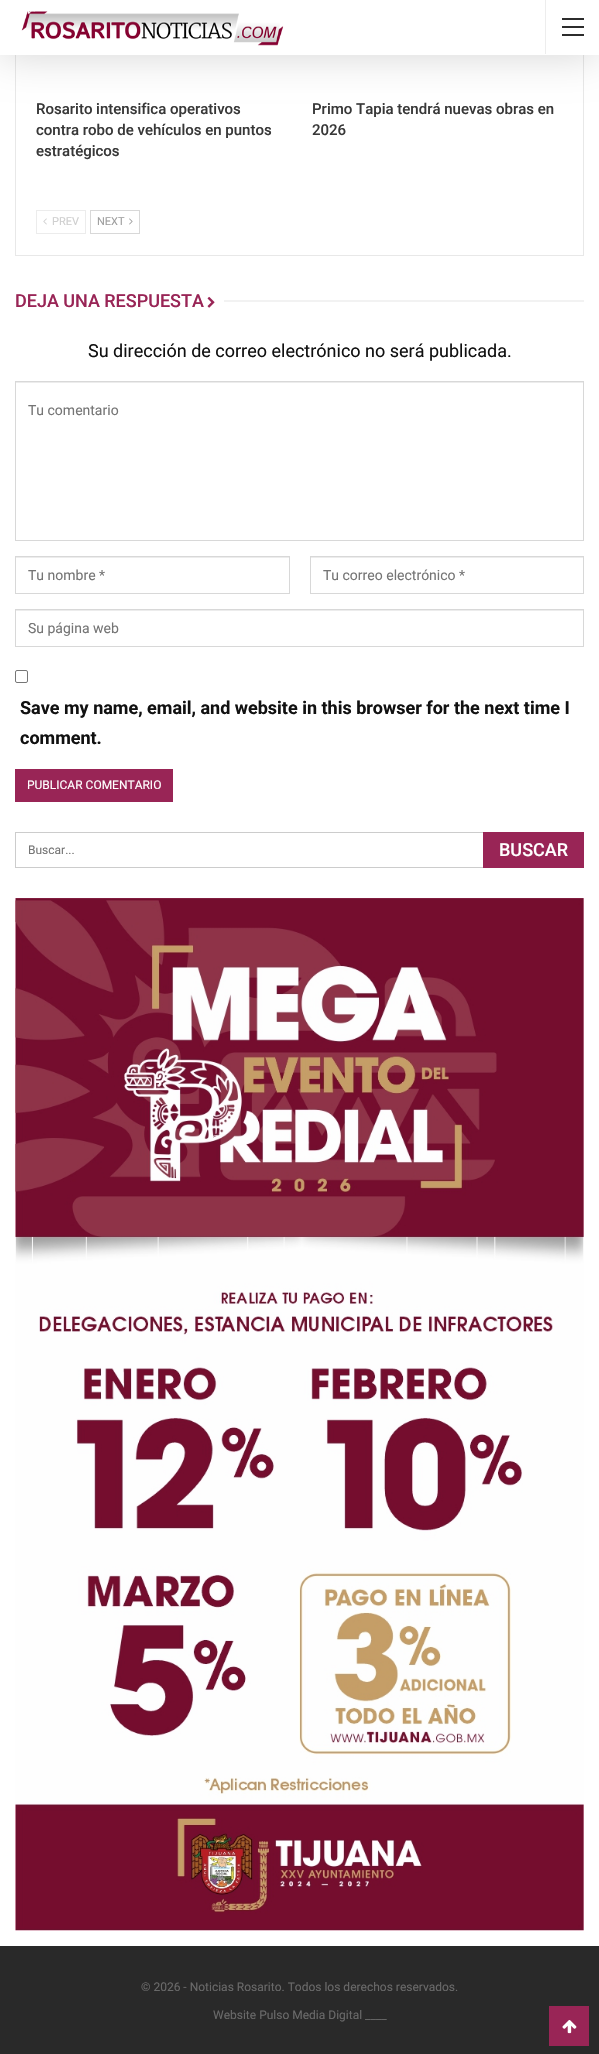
static SkFont makeFont(const char* family, int weight, float size, bool italic = false) {
  SkFontStyle style(weight, SkFontStyle::kNormal_Width,
    italic ? SkFontStyle::kItalic_Slant : SkFontStyle::kUpright_Slant);
  SkFont result(fontMgr->matchFamilyStyle(family, style), size);
  result.setSubpixel(true);
  return result;
}

static void text(SkCanvas* c, const char* s, float x, float y, const SkFont& font, SkColor color) {
  SkPaint ink(SkColor4f::FromColor(color));
  ink.setAntiAlias(true);
  c->drawString(s, x, y, font, ink);
}

static void box(SkCanvas* c, float l, float t, float r, float b, SkColor color) {
  SkPaint ink(SkColor4f::FromColor(color));
  ink.setAntiAlias(true);
  c->drawRect(SkRect::MakeLTRB(l, t, r, b), ink);
}

static void picture(SkCanvas* c, const char* path, float l, float t, float r, float b) {
  auto image = SkImages::DeferredFromEncodedData(SkData::MakeFromFileName(path));
  c->drawImageRect(image, SkRect::MakeLTRB(l, t, r, b), SkSamplingOptions());
}

void draw(SkCanvas* c) {
  SkPaint paint;
  paint.setAntiAlias(true);
  c->clear(0xffffffff);
  paint.setStyle(SkPaint::kStroke_Style);
  paint.setStrokeWidth(1);
  paint.setColor(0xffe8e8e8);
  c->drawRect(SkRect::MakeLTRB(15.5f, -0.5f, 583.5f, 255.5f), paint);
  paint.setStyle(SkPaint::kFill_Style);
  paint.setColor(0x2b000000);
  paint.setMaskFilter(SkMaskFilter::MakeBlur(kNormal_SkBlurStyle, 20));
  c->drawRect(SkRect::MakeLTRB(0, 0, 599, 55), paint);
  paint.setMaskFilter(nullptr);
  box(c, 0, 0, 599, 55, 0xffffffff);
  picture(c, "img_01.png", 21, 11, 284, 46);
  box(c, 545, 0, 546, 54, 0xffededed);
  box(c, 562, 26, 584, 28, 0xff2c2c2c);
  box(c, 562, 18, 584, 20, 0xff2c2c2c);
  box(c, 562, 34, 584, 36, 0xff2c2c2c);
  SkFont face1 = makeFont("Roboto", 500, 15);
  text(c, "Rosarito intensifica operativos", 36, 114, face1, 0xff383838);
  text(c, "contra robo de vehículos en puntos", 36, 135, face1, 0xff383838);
  text(c, "estratégicos", 36, 156, face1, 0xff383838);
  text(c, "Primo Tapia tendrá nuevas obras en", 312, 114, face1, 0xff383838);
  text(c, "2026", 312, 135, face1, 0xff383838);
  paint.setStyle(SkPaint::kStroke_Style);
  paint.setColor(0xffececec);
  c->drawRect(SkRect::MakeLTRB(36.5f, 210.5f, 85.5f, 233.5f), paint);
  picture(c, "img_02.png", 43, 218, 47, 225);
  SkFont face2 = makeFont("Roboto", 400, 11);
  text(c, "PREV", 52, 225, face2, 0xffcfcfcf);
  paint.setColor(0xffd8d8d8);
  c->drawRect(SkRect::MakeLTRB(90.5f, 210.5f, 139.5f, 233.5f), paint);
  text(c, "NEXT", 97, 225, face2, 0xff9e9e9e);
  picture(c, "img_03.png", 129, 218, 133, 225);
  SkFont face3 = makeFont("Roboto", 500, 18);
  text(c, "DEJA UNA RESPUESTA", 15, 307, face3, 0xff992556);
  picture(c, "img_04.png", 207, 296, 215, 308);
  box(c, 224, 300, 584, 302, 0xfff2f2f2);
  SkFont face4 = makeFont("Roboto", 400, 18);
  text(c, "Su dirección de correo electrónico no será publicada.", 88, 357, face4, 0xff111111);
  box(c, 16, 382, 583, 383, 0xffececec);
  c->drawRect(SkRect::MakeLTRB(15.5f, 381.5f, 583.5f, 540.5f), paint);
  SkFont face5 = makeFont("Roboto", 400, 14);
  text(c, "Tu comentario", 28, 415, face5, 0xff757575);
  box(c, 16, 557, 289, 558, 0xffececec);
  c->drawRect(SkRect::MakeLTRB(15.5f, 556.5f, 289.5f, 593.5f), paint);
  text(c, "Tu nombre *", 28, 580, face5, 0xff757575);
  box(c, 311, 557, 583, 558, 0xffececec);
  c->drawRect(SkRect::MakeLTRB(310.5f, 556.5f, 583.5f, 593.5f), paint);
  text(c, "Tu correo electrónico *", 323, 580, face5, 0xff757575);
  box(c, 16, 610, 583, 611, 0xffececec);
  c->drawRect(SkRect::MakeLTRB(15.5f, 609.5f, 583.5f, 646.5f), paint);
  text(c, "Su página web", 28, 633, face5, 0xff757575);
  paint.setColor(0xff767676);
  c->drawRoundRect(SkRect::MakeLTRB(15.5f, 670.5f, 27.5f, 682.5f), 1.5f, 1.5f, paint);
  SkFont face6 = makeFont("Roboto", 700, 18);
  text(c, "Save my name, email, and website in this browser for the next time I", 20, 714, face6, 0xff111111);
  text(c, "comment.", 20, 744, face6, 0xff111111);
  box(c, 15, 769, 173, 802, 0xff992556);
  SkFont face7 = makeFont("Roboto", 400, 12);
  text(c, "PUBLICAR COMENTARIO", 27, 789, face7, 0xffffffff);
  paint.setColor(0xffcccccc);
  c->drawRect(SkRect::MakeLTRB(15.5f, 832.5f, 583.5f, 867.5f), paint);
  text(c, "Buscar...", 28, 854, face7, 0xff757575);
  box(c, 483, 832, 584, 868, 0xff992556);
  text(c, "BUSCAR", 499, 856, face3, 0xffffffff);
  picture(c, "img_05.png", 15, 898, 584, 1931);
  box(c, 0, 1946, 599, 2054, 0xff292929);
  text(c, "© 2026 - Noticias Rosarito. Todos los derechos reservados.", 141, 1991, face7, 0xff696969);
  text(c, "Website Pulso Media Digital ____", 213, 2019, face7, 0xff696969);
  box(c, 549, 2006, 589, 2046, 0xff992556);
  picture(c, "img_06.png", 562, 2020, 577, 2034);
}
